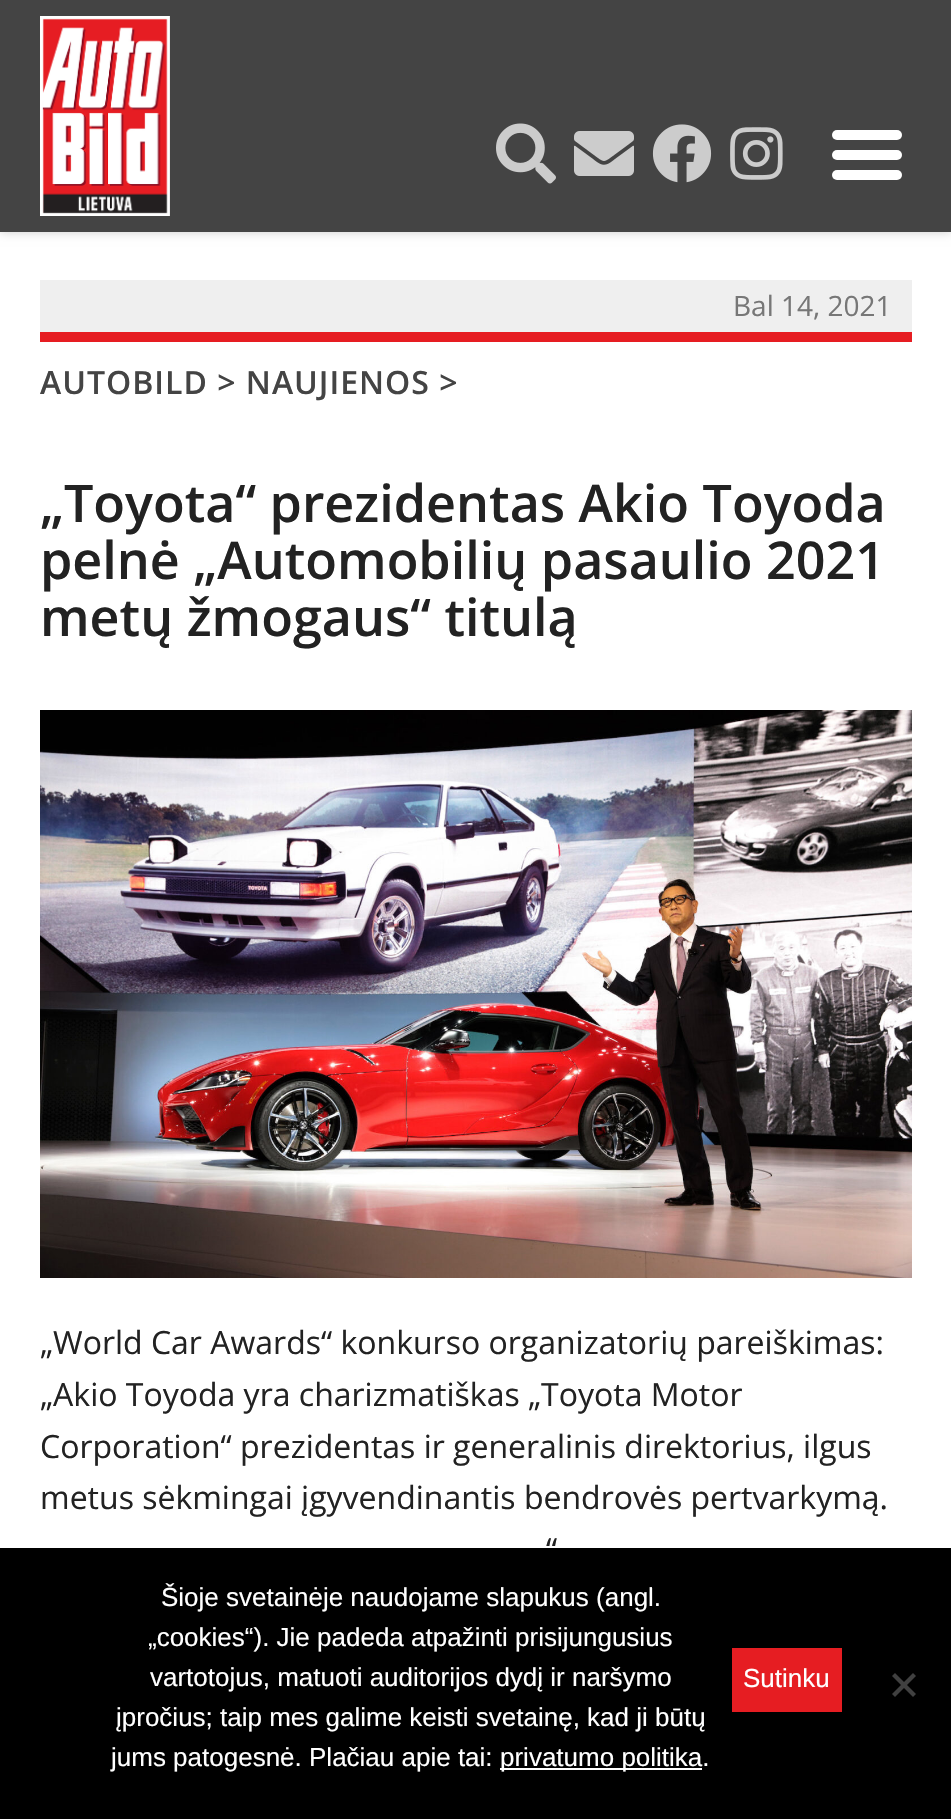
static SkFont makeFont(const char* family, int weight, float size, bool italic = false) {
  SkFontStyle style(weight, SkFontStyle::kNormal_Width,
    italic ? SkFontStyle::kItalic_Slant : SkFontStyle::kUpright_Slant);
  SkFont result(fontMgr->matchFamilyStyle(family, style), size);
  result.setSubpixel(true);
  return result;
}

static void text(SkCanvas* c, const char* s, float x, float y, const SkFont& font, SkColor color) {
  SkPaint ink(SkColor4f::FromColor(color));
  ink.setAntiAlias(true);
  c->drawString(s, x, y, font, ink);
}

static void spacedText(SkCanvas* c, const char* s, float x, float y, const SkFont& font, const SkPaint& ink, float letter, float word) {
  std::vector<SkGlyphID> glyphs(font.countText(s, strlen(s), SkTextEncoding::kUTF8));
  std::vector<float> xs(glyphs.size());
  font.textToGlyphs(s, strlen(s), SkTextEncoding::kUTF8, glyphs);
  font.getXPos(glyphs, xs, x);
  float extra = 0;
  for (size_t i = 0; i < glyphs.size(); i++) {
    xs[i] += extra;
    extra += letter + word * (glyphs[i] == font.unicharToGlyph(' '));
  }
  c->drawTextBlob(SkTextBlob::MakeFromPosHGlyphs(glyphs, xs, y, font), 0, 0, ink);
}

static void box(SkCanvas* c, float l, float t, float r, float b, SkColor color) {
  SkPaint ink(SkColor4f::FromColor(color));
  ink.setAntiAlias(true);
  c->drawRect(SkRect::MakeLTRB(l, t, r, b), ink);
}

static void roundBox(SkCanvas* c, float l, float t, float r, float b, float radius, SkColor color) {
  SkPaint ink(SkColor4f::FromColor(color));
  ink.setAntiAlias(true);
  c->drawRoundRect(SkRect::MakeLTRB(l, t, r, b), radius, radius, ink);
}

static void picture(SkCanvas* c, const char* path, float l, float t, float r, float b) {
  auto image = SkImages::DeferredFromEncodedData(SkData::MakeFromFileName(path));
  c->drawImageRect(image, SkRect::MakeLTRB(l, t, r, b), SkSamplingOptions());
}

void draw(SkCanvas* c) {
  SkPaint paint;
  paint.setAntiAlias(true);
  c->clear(0xffffffff);
  paint.setColor(0x33000000);
  paint.setMaskFilter(SkMaskFilter::MakeBlur(kNormal_SkBlurStyle, 5));
  c->drawRect(SkRect::MakeLTRB(0, 0, 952, 232), paint);
  paint.setMaskFilter(nullptr);
  box(c, 0, 0, 951, 232, 0xff444444);
  picture(c, "img_01.png", 40, 16, 170, 216);
  picture(c, "img_02.png", 496, 123, 556, 184);
  picture(c, "img_03.png", 574, 131, 634, 176);
  picture(c, "img_04.png", 652, 124, 712, 183);
  picture(c, "img_05.png", 730, 127, 783, 180);
  roundBox(c, 832, 130, 902, 140, 5, 0xffffffff);
  roundBox(c, 832, 150, 902, 160, 5, 0xffffffff);
  roundBox(c, 832, 170, 902, 180, 5, 0xffffffff);
  box(c, 40, 280, 912, 332, 0xffefefef);
  SkFont face1 = makeFont("Open Sans", 400, 28);
  text(c, "Bal 14, 2021", 733, 316, face1, 0xff777777);
  box(c, 40, 332, 912, 342, 0xffe61d22);
  SkFont face2 = makeFont("Open Sans", 600, 32);
  paint.setColor(0xff444444);
  spacedText(c, "AUTOBILD > NAUJIENOS >", 40, 394, face2, paint, 1, 0);
  SkFont face3 = makeFont("Open Sans", 600, 52);
  text(c, "„Toyota“ prezidentas Akio Toyoda", 40, 522, face3, 0xff222222);
  text(c, "pelnė „Automobilių pasaulio 2021", 40, 579, face3, 0xff222222);
  text(c, "metų žmogaus“ titulą", 40, 636, face3, 0xff222222);
  picture(c, "img_06.png", 40, 710, 912, 1278);
  SkFont face4 = makeFont("Open Sans", 400, 32);
  text(c, "„World Car Awards“ konkurso organizatorių pareiškimas:", 40, 1354, face4, 0xff222222);
  text(c, "„Akio Toyoda yra charizmatiškas „Toyota Motor", 40, 1406, face4, 0xff222222);
  text(c, "Corporation“ prezidentas ir generalinis direktorius, ilgus", 40, 1458, face4, 0xff222222);
  text(c, "metus sėkmingai įgyvendinantis bendrovės pertvarkymą.", 40, 1509, face4, 0xff222222);
  text(c, "“", 546, 1561, face4, 0xff222222);
  box(c, 0, 1548, 951, 1819, 0xff000000);
  SkFont face5 = makeFont("Liberation Sans", 400, 26);
  text(c, "Šioje svetainėje naudojame slapukus (angl.", 161, 1606, face5, 0xffffffff);
  text(c, "„cookies“). Jie padeda atpažinti prisijungusius", 148, 1646, face5, 0xffffffff);
  text(c, "vartotojus, matuoti auditorijos dydį ir naršymo", 150, 1686, face5, 0xffffffff);
  text(c, "įpročius; taip mes galime keisti svetainę, kad ji būtų", 116, 1726, face5, 0xffffffff);
  text(c, "jums patogesnė. Plačiau apie tai:", 111, 1766, face5, 0xffffffff);
  box(c, 500, 1768, 702, 1770, 0xffffffff);
  text(c, "privatumo politika.", 500, 1766, face5, 0xffffffff);
  box(c, 732, 1648, 842, 1712, 0xffe61d22);
  text(c, "Sutinku", 743, 1687, face5, 0xffffffff);
  paint.setColor(0xff404040);
  c->drawPath(SkPathBuilder().moveTo(913, 1673).lineTo(916, 1676).lineTo(895, 1697).lineTo(892, 1694).close().detach(), paint);
  c->drawPath(SkPathBuilder().moveTo(892, 1676).lineTo(895, 1673).lineTo(916, 1694).lineTo(913, 1697).close().detach(), paint);
}
